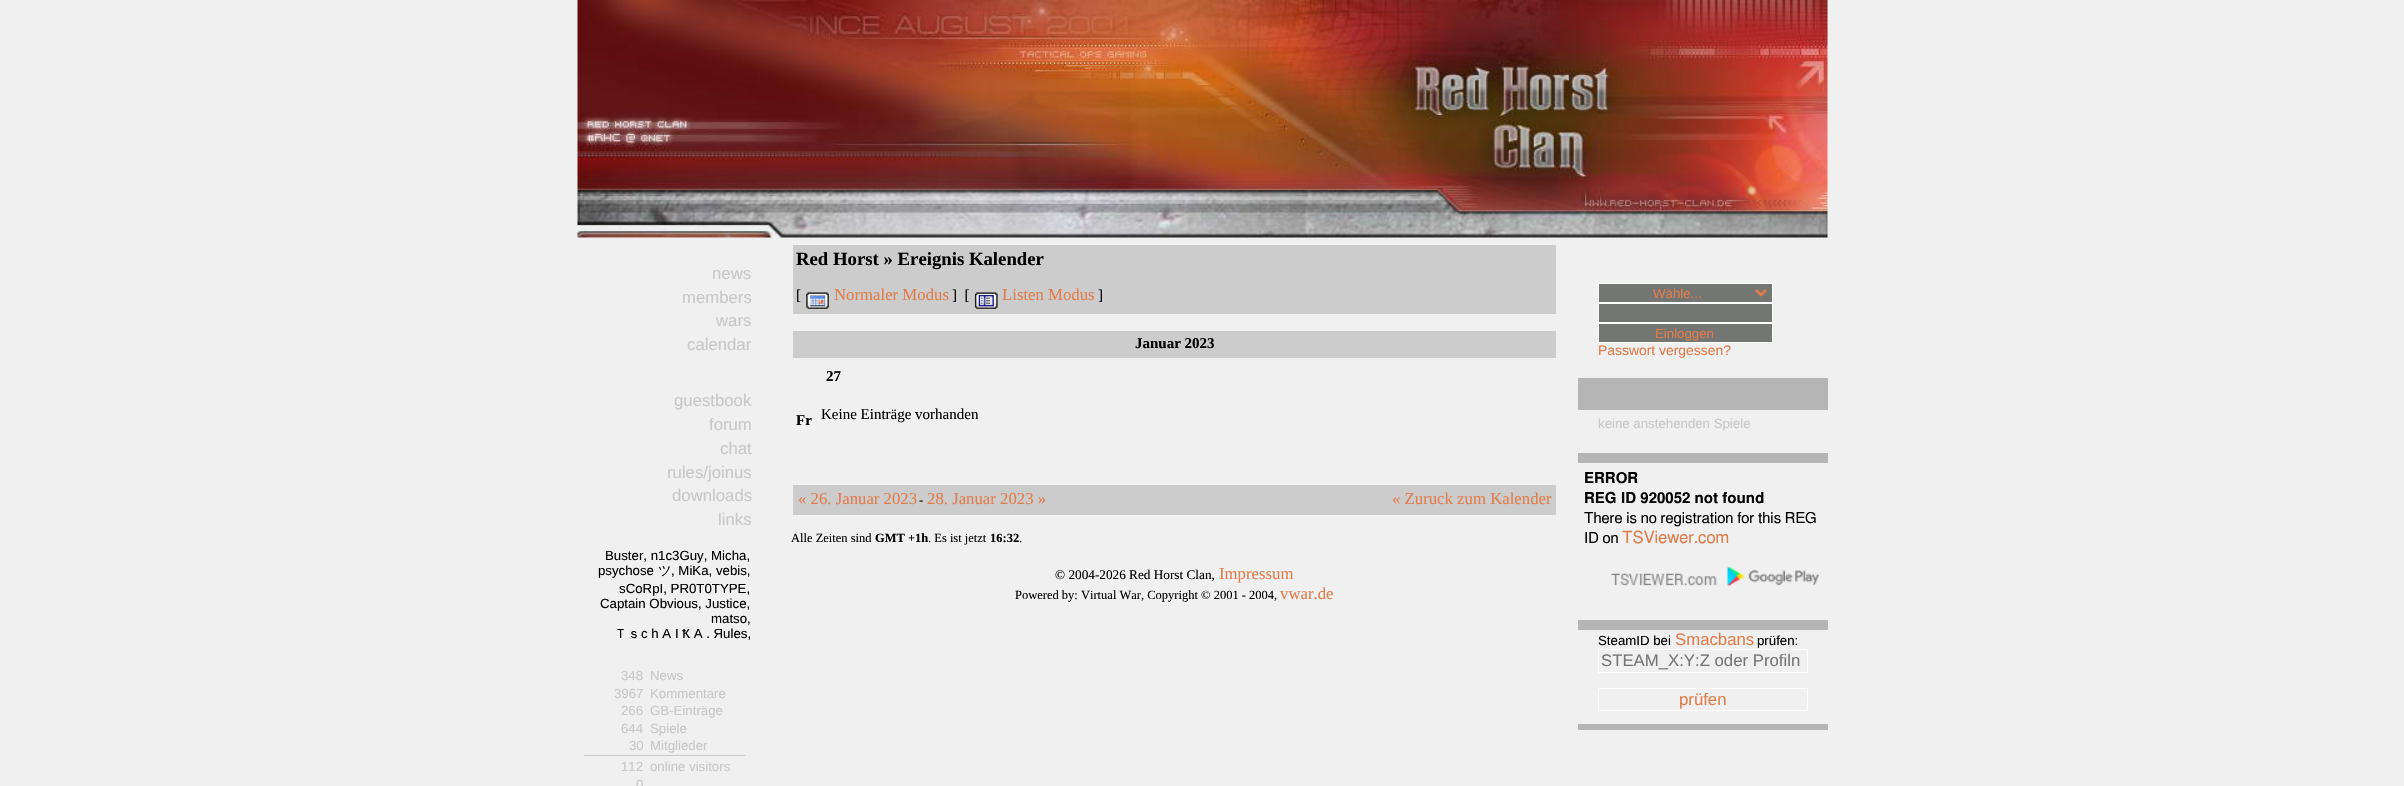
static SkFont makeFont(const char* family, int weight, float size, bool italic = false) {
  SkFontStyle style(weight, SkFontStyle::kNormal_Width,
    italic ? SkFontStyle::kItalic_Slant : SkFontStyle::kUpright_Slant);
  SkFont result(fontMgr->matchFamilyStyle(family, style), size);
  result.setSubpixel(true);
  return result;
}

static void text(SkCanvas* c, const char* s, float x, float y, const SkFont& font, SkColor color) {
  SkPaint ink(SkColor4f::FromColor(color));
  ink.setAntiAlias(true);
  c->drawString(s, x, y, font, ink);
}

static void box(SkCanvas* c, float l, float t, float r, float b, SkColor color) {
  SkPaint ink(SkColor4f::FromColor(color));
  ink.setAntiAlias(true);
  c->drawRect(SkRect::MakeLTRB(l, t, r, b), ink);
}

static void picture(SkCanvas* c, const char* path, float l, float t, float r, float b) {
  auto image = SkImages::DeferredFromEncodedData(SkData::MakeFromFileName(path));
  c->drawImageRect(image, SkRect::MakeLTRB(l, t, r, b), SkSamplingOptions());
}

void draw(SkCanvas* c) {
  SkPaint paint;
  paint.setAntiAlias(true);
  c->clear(0xfff0f0f0);
  picture(c, "img_01.png", 577, 0, 1828, 238);
  SkFont face1 = makeFont("Liberation Sans", 400, 16.75f);
  text(c, "news", 712, 279, face1, 0xffc8c8c8);
  text(c, "members", 682, 303, face1, 0xffc8c8c8);
  text(c, "wars", 716, 326, face1, 0xffc8c8c8);
  text(c, "calendar", 687, 350, face1, 0xffc8c8c8);
  text(c, "guestbook", 674, 406, face1, 0xffc8c8c8);
  text(c, "forum", 709, 430, face1, 0xffc8c8c8);
  text(c, "chat", 720, 454, face1, 0xffc8c8c8);
  text(c, "rules/joinus", 667, 478, face1, 0xffc8c8c8);
  text(c, "downloads", 672, 501, face1, 0xffc8c8c8);
  text(c, "links", 718, 525, face1, 0xffc8c8c8);
  SkFont face2 = makeFont("Liberation Sans", 400, 13.25f);
  text(c, "Buster, n1c3Guy, Micha,", 605, 560, face2, 0xff000000);
  text(c, "psychose", 598, 575, face2, 0xff000000);
  SkFont face3 = makeFont("WenQuanYi Zen Hei", 500, 13.25f);
  text(c, "ツ", 658, 575, face3, 0xff000000);
  text(c, ", MiKa, vebis,", 671, 575, face2, 0xff000000);
  text(c, "sCoRpI, PR0T0TYPE,", 619, 593, face2, 0xff000000);
  text(c, "Captain Obvious, Justice,", 600, 608, face2, 0xff000000);
  text(c, "matso,", 711, 623, face2, 0xff000000);
  text(c, "Ｔｓ", 614, 638, face3, 0xff000000);
  text(c, "c h A I Ҟ A . Яules,", 641, 638, face2, 0xff000000);
  text(c, "348", 621, 680, face2, 0xffc8c8c8);
  text(c, "News", 650, 680, face2, 0xffc8c8c8);
  text(c, "3967", 614, 698, face2, 0xffc8c8c8);
  text(c, "Kommentare", 650, 698, face2, 0xffc8c8c8);
  text(c, "266", 621, 715, face2, 0xffc8c8c8);
  text(c, "GB-Einträge", 650, 715, face2, 0xffc8c8c8);
  text(c, "644", 621, 733, face2, 0xffc8c8c8);
  text(c, "Spiele", 650, 733, face2, 0xffc8c8c8);
  text(c, "30", 629, 750, face2, 0xffc8c8c8);
  text(c, "Mitglieder", 650, 750, face2, 0xffc8c8c8);
  box(c, 584, 755, 745, 756, 0xffc8c8c8);
  text(c, "112", 621, 771, face2, 0xffc8c8c8);
  text(c, "online visitors", 650, 771, face2, 0xffc8c8c8);
  text(c, "0", 636, 789, face2, 0xffc8c8c8);
  box(c, 793, 245, 1556, 314, 0xffcccccc);
  SkFont face4 = makeFont("Liberation Serif", 700, 18.75f);
  text(c, "Red Horst » Ereignis Kalender", 796, 265, face4, 0xff000000);
  SkFont face5 = makeFont("Liberation Serif", 400, 15);
  text(c, "[", 796, 300, face5, 0xff000000);
  picture(c, "img_02.png", 806, 292, 829, 309);
  SkFont face6 = makeFont("Liberation Serif", 400, 16.75f);
  text(c, "Normaler Modus", 834, 300, face6, 0xffe17c4b);
  text(c, "]  [", 952, 300, face5, 0xff000000);
  picture(c, "img_03.png", 974, 292, 998, 309);
  text(c, "Listen Modus", 1002, 300, face6, 0xffe17c4b);
  text(c, "]", 1098, 300, face5, 0xff000000);
  box(c, 793, 331, 1556, 358, 0xffcccccc);
  SkFont face7 = makeFont("Liberation Serif", 700, 15);
  text(c, "Januar 2023", 1135, 348, face7, 0xff000000);
  text(c, "Fr", 796, 425, face7, 0xff000000);
  text(c, "27", 826, 381, face7, 0xff000000);
  text(c, "Keine Einträge vorhanden", 821, 419, face5, 0xff000000);
  box(c, 793, 485, 1556, 515, 0xffcccccc);
  text(c, "« 26. Januar 2023", 798, 504, face6, 0xffe17c4b);
  SkFont face8 = makeFont("Liberation Serif", 400, 12.5f);
  text(c, "-", 919, 504, face8, 0xff000000);
  text(c, "28. Januar 2023 »", 927, 504, face6, 0xffe17c4b);
  text(c, "« Zuruck zum Kalender", 1392, 504, face6, 0xffe17c4b);
  text(c, "Alle Zeiten sind", 791, 542, face8, 0xff000000);
  SkFont face9 = makeFont("Liberation Serif", 700, 12.5f);
  text(c, "GMT +1h", 875, 542, face9, 0xff000000);
  text(c, ". Es ist jetzt", 928, 542, face8, 0xff000000);
  text(c, "16:32", 990, 542, face9, 0xff000000);
  text(c, ".", 1019, 542, face8, 0xff000000);
  SkFont face10 = makeFont("Liberation Serif", 400, 13.25f);
  text(c, "© 2004-2026 Red Horst Clan,", 1055, 579, face10, 0xff000000);
  text(c, "Impressum", 1219, 579, face6, 0xffe17c4b);
  text(c, "Powered by: Virtual War, Copyright © 2001 - 2004,", 1015, 599, face8, 0xff000000);
  text(c, "vwar.de", 1280, 599, face6, 0xffe17c4b);
  paint.setColor(0xff747674);
  c->drawRect(SkRect::MakeLTRB(1598.5f, 283.5f, 1772.5f, 302.5f), paint);
  paint.setStyle(SkPaint::kStroke_Style);
  paint.setStrokeWidth(1);
  paint.setColor(0xffffffff);
  c->drawRect(SkRect::MakeLTRB(1598.5f, 283.5f, 1772.5f, 302.5f), paint);
  paint.setStrokeWidth(2.5f);
  paint.setColor(0xffe17c4b);
  c->drawPath(SkPathBuilder().moveTo(1756, 290).lineTo(1761, 295).lineTo(1766, 290).detach(), paint);
  text(c, "Wähle...", 1653, 298, face2, 0xffe17c4b);
  paint.setStyle(SkPaint::kFill_Style);
  paint.setColor(0xff747674);
  c->drawRect(SkRect::MakeLTRB(1598.5f, 303.5f, 1772.5f, 322.5f), paint);
  paint.setStyle(SkPaint::kStroke_Style);
  paint.setStrokeWidth(1);
  paint.setColor(0xffffffff);
  c->drawRect(SkRect::MakeLTRB(1598.5f, 303.5f, 1772.5f, 322.5f), paint);
  paint.setStyle(SkPaint::kFill_Style);
  paint.setColor(0xff747674);
  c->drawRect(SkRect::MakeLTRB(1598.5f, 323.5f, 1772.5f, 342.5f), paint);
  paint.setStyle(SkPaint::kStroke_Style);
  paint.setColor(0xffffffff);
  c->drawRect(SkRect::MakeLTRB(1598.5f, 323.5f, 1772.5f, 342.5f), paint);
  text(c, "Einloggen", 1655, 338, face2, 0xffe17c4b);
  SkFont face11 = makeFont("Liberation Sans", 400, 13.9f);
  text(c, "Passwort vergessen?", 1598, 355, face11, 0xffe17c4b);
  box(c, 1578, 378, 1828, 410, 0xffb5b5b5);
  text(c, "keine anstehenden Spiele", 1598, 428, face2, 0xffc8c8c8);
  box(c, 1578, 453, 1828, 463, 0xffb5b5b5);
  SkFont face12 = makeFont("FreeSans", 600, 15);
  text(c, "ERROR", 1584, 483, face12, 0xff000000);
  text(c, "REG ID 920052 not found", 1584, 503, face12, 0xff000000);
  SkFont face13 = makeFont("FreeSans", 400, 15);
  text(c, "There is no registration for this REG", 1584, 523, face13, 0xff000000);
  text(c, "ID on", 1584, 543, face13, 0xff000000);
  SkFont face14 = makeFont("FreeSans", 400, 16.75f);
  text(c, "TSViewer.com", 1622, 543, face14, 0xffe17c4b);
  picture(c, "img_04.png", 1611, 573, 1717, 586);
  picture(c, "img_05.png", 1727, 566, 1819, 587);
  box(c, 1578, 620, 1828, 630, 0xffb5b5b5);
  text(c, "SteamID bei", 1598, 645, face2, 0xff000000);
  text(c, "Smacbans", 1675, 645, face1, 0xffe17c4b);
  text(c, "prüfen:", 1757, 645, face2, 0xff000000);
  c->drawRect(SkRect::MakeLTRB(1598.5f, 649.5f, 1807.5f, 672.5f), paint);
  text(c, "STEAM_X:Y:Z oder Profiln", 1601, 666, face1, 0xff757575);
  c->drawRect(SkRect::MakeLTRB(1598.5f, 688.5f, 1807.5f, 710.5f), paint);
  text(c, "prüfen", 1679, 705, face1, 0xffe17c4b);
  box(c, 1578, 724, 1828, 730, 0xffb5b5b5);
}
